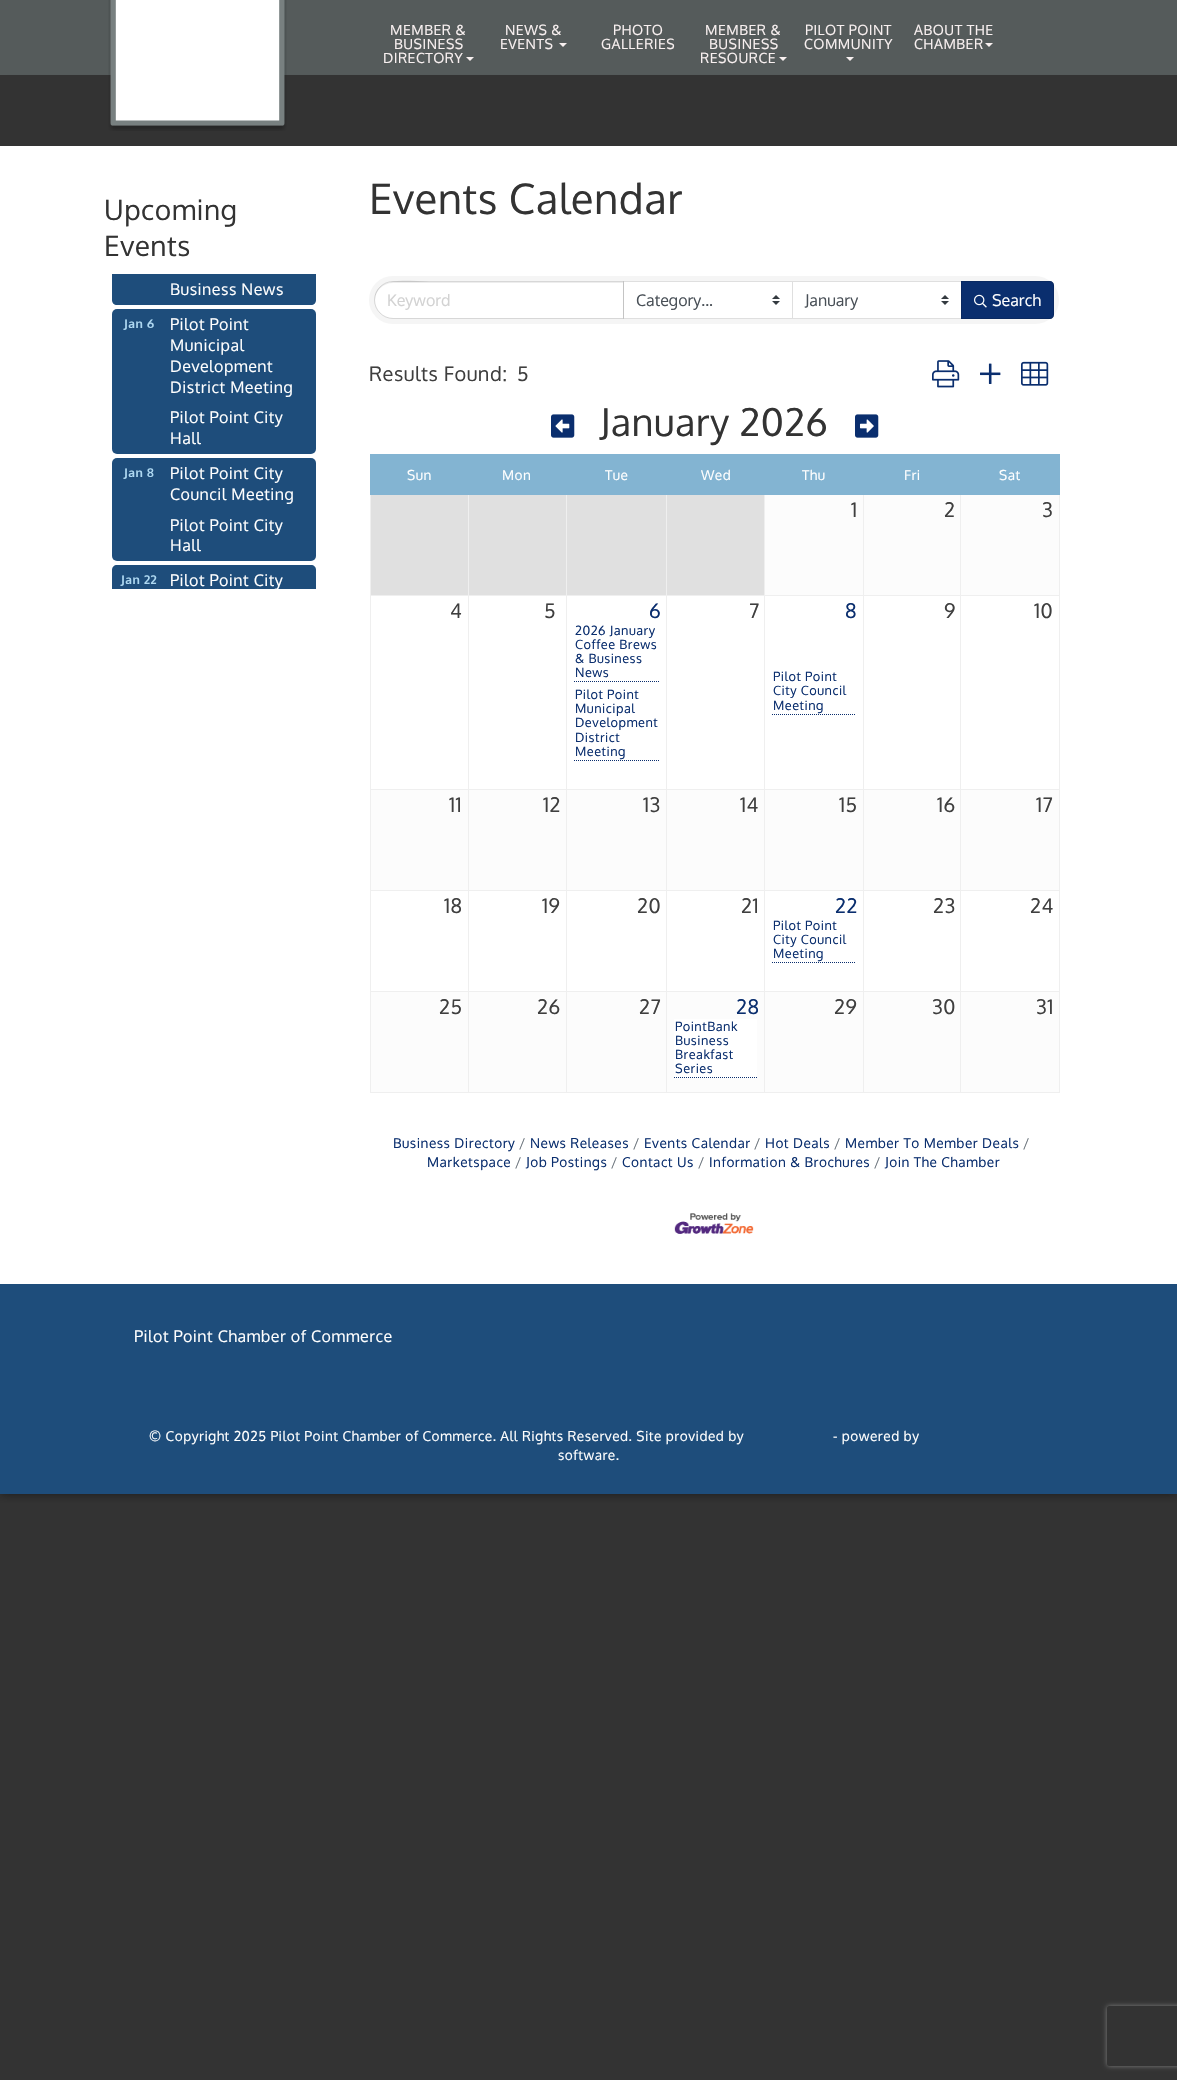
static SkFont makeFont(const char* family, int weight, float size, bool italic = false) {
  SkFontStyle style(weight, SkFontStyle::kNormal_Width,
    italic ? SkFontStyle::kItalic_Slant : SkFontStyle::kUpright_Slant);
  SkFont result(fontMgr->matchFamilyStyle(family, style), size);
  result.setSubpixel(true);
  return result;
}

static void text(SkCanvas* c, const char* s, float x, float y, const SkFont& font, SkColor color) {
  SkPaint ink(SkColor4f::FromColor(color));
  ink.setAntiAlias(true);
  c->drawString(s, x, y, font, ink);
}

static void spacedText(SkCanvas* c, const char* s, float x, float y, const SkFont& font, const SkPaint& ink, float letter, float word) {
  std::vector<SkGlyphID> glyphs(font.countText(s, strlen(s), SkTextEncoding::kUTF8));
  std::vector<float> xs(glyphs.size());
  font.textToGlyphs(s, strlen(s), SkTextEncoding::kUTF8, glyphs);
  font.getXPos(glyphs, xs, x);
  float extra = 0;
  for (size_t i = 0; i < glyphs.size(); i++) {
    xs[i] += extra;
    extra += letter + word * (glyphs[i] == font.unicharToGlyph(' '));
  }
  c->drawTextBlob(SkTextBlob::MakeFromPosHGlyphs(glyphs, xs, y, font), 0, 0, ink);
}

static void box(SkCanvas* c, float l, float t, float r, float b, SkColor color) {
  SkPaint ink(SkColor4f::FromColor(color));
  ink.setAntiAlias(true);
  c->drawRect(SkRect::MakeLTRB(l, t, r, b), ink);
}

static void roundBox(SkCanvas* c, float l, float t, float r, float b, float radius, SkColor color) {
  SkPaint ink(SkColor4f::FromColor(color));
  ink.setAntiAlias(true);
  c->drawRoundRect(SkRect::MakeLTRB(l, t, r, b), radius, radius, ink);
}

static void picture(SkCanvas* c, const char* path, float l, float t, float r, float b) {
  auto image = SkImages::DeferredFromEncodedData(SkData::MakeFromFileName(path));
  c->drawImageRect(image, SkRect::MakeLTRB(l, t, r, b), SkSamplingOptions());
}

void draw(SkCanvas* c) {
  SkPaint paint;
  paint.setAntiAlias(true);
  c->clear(0xff333333);
  c->save();
  c->clipRect(SkRect::MakeLTRB(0, 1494, 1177, 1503));
  paint.setColor(0x80000000);
  paint.setMaskFilter(SkMaskFilter::MakeBlur(kNormal_SkBlurStyle, 5));
  c->drawRect(SkRect::MakeLTRB(0, 0, 1177, 1494), paint);
  paint.setMaskFilter(nullptr);
  c->restore();
  c->save();
  c->clipRect(SkRect::MakeLTRB(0, 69, 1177, 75));
  paint.setColor(0x4d000000);
  paint.setMaskFilter(SkMaskFilter::MakeBlur(kNormal_SkBlurStyle, 3));
  c->drawRect(SkRect::MakeLTRB(0, 73, 1177, 144), paint);
  paint.setMaskFilter(nullptr);
  c->restore();
  box(c, 0, 0, 1177, 75, 0xe6595f5f);
  picture(c, "img_01.png", 108, 0, 287, 131);
  SkFont face1 = makeFont("Oxygen", 400, 14);
  paint.setColor(0xfff8f0f0);
  spacedText(c, "MEMBER &", 390, 35, face1, paint, 0.5f, 0);
  spacedText(c, "BUSINESS", 394, 49, face1, paint, 0.5f, 0);
  spacedText(c, "DIRECTORY", 383, 63, face1, paint, 0.5f, 0);
  c->drawPath(SkPathBuilder().moveTo(466, 57).lineTo(474, 57).lineTo(470, 61).close().detach(), paint);
  spacedText(c, "NEWS &", 505, 35, face1, paint, 0.5f, 0);
  spacedText(c, "EVENTS", 500, 49, face1, paint, 0.5f, 0);
  c->drawPath(SkPathBuilder().moveTo(559, 43).lineTo(567, 43).lineTo(563, 47).close().detach(), paint);
  spacedText(c, "PHOTO", 613, 35, face1, paint, 0.5f, 0);
  spacedText(c, "GALLERIES", 601, 49, face1, paint, 0.5f, 0);
  spacedText(c, "MEMBER &", 705, 35, face1, paint, 0.5f, 0);
  spacedText(c, "BUSINESS", 709, 49, face1, paint, 0.5f, 0);
  spacedText(c, "RESOURCE", 700, 63, face1, paint, 0.5f, 0);
  c->drawPath(SkPathBuilder().moveTo(779, 57).lineTo(787, 57).lineTo(783, 61).close().detach(), paint);
  spacedText(c, "PILOT POINT", 805, 35, face1, paint, 0.5f, 0);
  spacedText(c, "COMMUNITY", 804, 49, face1, paint, 0.5f, 0);
  c->drawPath(SkPathBuilder().moveTo(846, 57).lineTo(854, 57).lineTo(850, 61).close().detach(), paint);
  spacedText(c, "ABOUT THE", 914, 35, face1, paint, 0.5f, 0);
  spacedText(c, "CHAMBER", 914, 49, face1, paint, 0.5f, 0);
  c->drawPath(SkPathBuilder().moveTo(985, 43).lineTo(993, 43).lineTo(989, 47).close().detach(), paint);
  box(c, 0, 146, 1177, 1284, 0xffffffff);
  SkFont face2 = makeFont("Oxygen", 400, 28);
  paint.setColor(0xff333333);
  spacedText(c, "Upcoming", 104, 220, face2, paint, 0.5f, 0);
  spacedText(c, "Events", 104, 256, face2, paint, 0.5f, 0);
  paint.setColor(0xff1e4d7b);
  c->drawPath(SkPathBuilder().moveTo(112, 274).lineTo(316, 274).lineTo(316, 300).cubicTo(316, 303, 314, 305, 311, 305).lineTo(117, 305).cubicTo(114, 305, 112, 303, 112, 300).close().detach(), paint);
  SkFont face3 = makeFont("Oxygen", 400, 16);
  paint.setColor(0xffffffff);
  spacedText(c, "Business News", 170, 295, face3, paint, 0.5f, 0);
  roundBox(c, 112, 309, 316, 454, 5, 0xff1e4d7b);
  SkFont face4 = makeFont("Oxygen", 700, 12);
  paint.setColor(0xffaed8f1);
  spacedText(c, "Jan 6", 124, 328, face4, paint, 0.5f, 0);
  paint.setColor(0xffffffff);
  spacedText(c, "Pilot Point", 170, 330, face3, paint, 0.5f, 0);
  spacedText(c, "Municipal", 170, 351, face3, paint, 0.5f, 0);
  spacedText(c, "Development", 170, 372, face3, paint, 0.5f, 0);
  spacedText(c, "District Meeting", 170, 393, face3, paint, 0.5f, 0);
  spacedText(c, "Pilot Point City", 170, 423, face3, paint, 0.5f, 0);
  spacedText(c, "Hall", 170, 444, face3, paint, 0.5f, 0);
  roundBox(c, 112, 458, 316, 561, 5, 0xff1e4d7b);
  paint.setColor(0xffaed8f1);
  spacedText(c, "Jan 8", 124, 477, face4, paint, 0.5f, 0);
  paint.setColor(0xffffffff);
  spacedText(c, "Pilot Point City", 170, 479, face3, paint, 0.5f, 0);
  spacedText(c, "Council Meeting", 170, 500, face3, paint, 0.5f, 0);
  spacedText(c, "Pilot Point City", 170, 531, face3, paint, 0.5f, 0);
  spacedText(c, "Hall", 170, 551, face3, paint, 0.5f, 0);
  paint.setColor(0xff1e4d7b);
  c->drawPath(SkPathBuilder().moveTo(117, 565).lineTo(311, 565).cubicTo(314, 565, 316, 567, 316, 570).lineTo(316, 589).lineTo(112, 589).lineTo(112, 570).cubicTo(112, 567, 114, 565, 117, 565).close().detach(), paint);
  paint.setColor(0xffaed8f1);
  spacedText(c, "Jan 22", 121, 584, face4, paint, 0.5f, 0);
  c->save();
  c->clipRect(SkRect::MakeLTRB(112, 274, 316, 589));
  paint.setColor(0xffffffff);
  spacedText(c, "Pilot Point City", 170, 586, face3, paint, 0.5f, 0);
  c->restore();
  SkFont face5 = makeFont("Oxygen", 400, 42);
  paint.setColor(0xff333333);
  spacedText(c, "Events Calendar", 369, 214, face5, paint, 0.5f, 0);
  roundBox(c, 369, 276, 1059, 324, 24, 0xfff5f5f5);
  paint.setColor(0xffffffff);
  c->drawPath(SkPathBuilder().moveTo(393, 282).lineTo(623, 282).lineTo(623, 318).lineTo(393, 318).cubicTo(383, 318, 375, 310, 375, 300).cubicTo(375, 290, 383, 282, 393, 282).close().detach(), paint);
  paint.setColor(0x12000000);
  c->drawPath(SkPathBuilder().moveTo(393, 283).lineTo(623, 283).lineTo(623, 282).lineTo(431, 282).cubicTo(419, 282, 374, 273, 375, 300).cubicTo(375, 291, 383, 283, 393, 283).close().detach(), paint);
  box(c, 624, 282, 792, 318, 0xffffffff);
  picture(c, "img_02.png", 772, 295, 780, 305);
  paint.setStyle(SkPaint::kStroke_Style);
  paint.setStrokeWidth(1);
  paint.setColor(0xffdfdfdf);
  c->drawRect(SkRect::MakeLTRB(623.5f, 281.5f, 792.5f, 318.5f), paint);
  paint.setColor(0x1f000000);
  c->drawPath(SkPathBuilder().moveTo(393, 281.5f).lineTo(623.5f, 281.5f).lineTo(623.5f, 318.5f).lineTo(393, 318.5f).cubicTo(383, 318.5f, 374.5f, 310, 374.5f, 300).cubicTo(374.5f, 290, 383, 281.5f, 393, 281.5f).close().detach(), paint);
  text(c, "Keyword", 387, 306, face3, 0xffd2d2d2);
  text(c, "Category...", 636, 306, face3, 0xff495057);
  box(c, 793, 282, 961, 318, 0xffffffff);
  picture(c, "img_02.png", 941, 295, 949, 305);
  paint.setColor(0xffdfdfdf);
  c->drawRect(SkRect::MakeLTRB(792.5f, 281.5f, 961.5f, 318.5f), paint);
  text(c, "January", 805, 306, face3, 0xff495057);
  paint.setStyle(SkPaint::kFill_Style);
  paint.setColor(0xff0a2e6e);
  c->drawPath(SkPathBuilder().moveTo(961, 281).lineTo(1050, 281).cubicTo(1052, 281, 1054, 283, 1054, 285).lineTo(1054, 315).cubicTo(1054, 317, 1052, 319, 1050, 319).lineTo(961, 319).close().detach(), paint);
  paint.setStyle(SkPaint::kStroke_Style);
  paint.setColor(0x1f000000);
  c->drawPath(SkPathBuilder().moveTo(961.5f, 281.5f).lineTo(1050, 281.5f).cubicTo(1052, 281.5f, 1053.5f, 283, 1053.5f, 285).lineTo(1053.5f, 315).cubicTo(1053.5f, 317, 1052, 318.5f, 1050, 318.5f).lineTo(961.5f, 318.5f).close().detach(), paint);
  picture(c, "img_03.png", 974, 294, 987, 308);
  text(c, "Search", 992, 306, face3, 0xffffffff);
  SkFont face6 = makeFont("Oxygen", 400, 20);
  paint.setStyle(SkPaint::kFill_Style);
  paint.setColor(0xff3f3f3f);
  spacedText(c, "Results Found:", 369, 381, face6, paint, 0.5f, 0);
  spacedText(c, "5", 517, 381, face6, paint, 0.5f, 0);
  picture(c, "img_04.png", 932, 360, 960, 388);
  picture(c, "img_05.png", 980, 363, 1001, 384);
  picture(c, "img_06.png", 1021, 361, 1049, 386);
  picture(c, "img_07.png", 551, 414, 575, 438);
  SkFont face7 = makeFont("Oxygen", 400, 38);
  paint.setColor(0xff333333);
  spacedText(c, "January 2026", 600, 436, face7, paint, 0.5f, 0);
  picture(c, "img_08.png", 855, 414, 879, 438);
  box(c, 370, 455, 1059, 494, 0xff83b4d2);
  SkFont face8 = makeFont("Oxygen", 400, 13.6f);
  paint.setColor(0xffffffff);
  spacedText(c, "Sun", 407, 480, face8, paint, 0.5f, 0);
  spacedText(c, "Mon", 502, 480, face8, paint, 0.5f, 0);
  spacedText(c, "Tue", 605, 480, face8, paint, 0.5f, 0);
  spacedText(c, "Wed", 701, 480, face8, paint, 0.5f, 0);
  spacedText(c, "Thu", 802, 480, face8, paint, 0.5f, 0);
  spacedText(c, "Fri", 904, 480, face8, paint, 0.5f, 0);
  box(c, 370, 454, 1060, 455, 0xff83b4d2);
  box(c, 960, 595, 1060, 596, 0xffefefef);
  box(c, 960, 789, 1060, 790, 0xffefefef);
  box(c, 960, 890, 1060, 891, 0xffefefef);
  box(c, 960, 991, 1060, 992, 0xffefefef);
  box(c, 1059, 991, 1060, 1093, 0xffefefef);
  box(c, 1059, 890, 1060, 992, 0xffefefef);
  box(c, 1059, 789, 1060, 891, 0xffefefef);
  box(c, 1059, 494, 1060, 790, 0xffefefef);
  box(c, 1059, 454, 1060, 495, 0xff83b4d2);
  box(c, 371, 790, 1059, 890, 0xfffcfcfc);
  box(c, 371, 992, 1059, 1092, 0xfffcfcfc);
  box(c, 960, 1092, 1060, 1093, 0xffefefef);
  box(c, 960, 991, 961, 1093, 0xffefefef);
  box(c, 863, 991, 961, 992, 0xffefefef);
  box(c, 960, 890, 961, 992, 0xffefefef);
  box(c, 863, 890, 961, 891, 0xffefefef);
  box(c, 960, 789, 961, 891, 0xffefefef);
  box(c, 863, 789, 961, 790, 0xffefefef);
  box(c, 960, 595, 961, 790, 0xffefefef);
  box(c, 863, 595, 961, 596, 0xffefefef);
  box(c, 863, 1092, 961, 1093, 0xffefefef);
  box(c, 863, 991, 864, 1093, 0xffefefef);
  box(c, 764, 991, 864, 992, 0xffefefef);
  box(c, 863, 890, 864, 992, 0xffefefef);
  box(c, 764, 890, 864, 891, 0xffefefef);
  box(c, 863, 789, 864, 891, 0xffefefef);
  box(c, 764, 789, 864, 790, 0xffefefef);
  box(c, 863, 595, 864, 790, 0xffefefef);
  box(c, 764, 595, 864, 596, 0xffefefef);
  box(c, 764, 1092, 864, 1093, 0xffefefef);
  box(c, 764, 991, 765, 1093, 0xffefefef);
  box(c, 666, 991, 765, 992, 0xffefefef);
  box(c, 764, 890, 765, 992, 0xffefefef);
  box(c, 666, 890, 765, 891, 0xffefefef);
  box(c, 764, 789, 765, 891, 0xffefefef);
  box(c, 666, 789, 765, 790, 0xffefefef);
  box(c, 764, 595, 765, 790, 0xffefefef);
  box(c, 666, 595, 765, 596, 0xffefefef);
  box(c, 666, 1092, 765, 1093, 0xffefefef);
  box(c, 666, 991, 667, 1093, 0xffefefef);
  box(c, 566, 991, 667, 992, 0xffefefef);
  box(c, 666, 890, 667, 992, 0xffefefef);
  box(c, 566, 890, 667, 891, 0xffefefef);
  box(c, 666, 789, 667, 891, 0xffefefef);
  box(c, 566, 789, 667, 790, 0xffefefef);
  box(c, 666, 595, 667, 790, 0xffefefef);
  box(c, 566, 595, 667, 596, 0xffefefef);
  box(c, 566, 1092, 667, 1093, 0xffefefef);
  box(c, 566, 991, 567, 1093, 0xffefefef);
  box(c, 468, 991, 567, 992, 0xffefefef);
  box(c, 566, 890, 567, 992, 0xffefefef);
  box(c, 468, 890, 567, 891, 0xffefefef);
  box(c, 566, 789, 567, 891, 0xffefefef);
  box(c, 468, 789, 567, 790, 0xffefefef);
  box(c, 566, 595, 567, 790, 0xffefefef);
  box(c, 468, 595, 567, 596, 0xffefefef);
  box(c, 468, 1092, 567, 1093, 0xffefefef);
  box(c, 468, 991, 469, 1093, 0xffefefef);
  box(c, 370, 991, 469, 992, 0xffefefef);
  box(c, 468, 890, 469, 992, 0xffefefef);
  box(c, 370, 890, 469, 891, 0xffefefef);
  box(c, 468, 789, 469, 891, 0xffefefef);
  box(c, 370, 789, 469, 790, 0xffefefef);
  box(c, 468, 595, 469, 790, 0xffefefef);
  box(c, 370, 595, 469, 596, 0xffefefef);
  box(c, 468, 494, 469, 596, 0xffefefef);
  box(c, 566, 494, 567, 596, 0xffefefef);
  box(c, 666, 494, 667, 596, 0xffefefef);
  box(c, 764, 494, 765, 596, 0xffefefef);
  box(c, 765, 495, 1059, 595, 0xfffcfcfc);
  box(c, 863, 494, 864, 596, 0xffefefef);
  box(c, 960, 494, 961, 596, 0xffefefef);
  box(c, 370, 1092, 469, 1093, 0xffefefef);
  box(c, 370, 991, 371, 1093, 0xffefefef);
  box(c, 370, 890, 371, 992, 0xffefefef);
  box(c, 370, 789, 371, 891, 0xffefefef);
  box(c, 370, 494, 371, 790, 0xffefefef);
  box(c, 370, 494, 1060, 495, 0xff83b4d2);
  spacedText(c, "Sat", 999, 480, face8, paint, 0.5f, 0);
  box(c, 371, 495, 468, 595, 0xffe0e0e0);
  box(c, 469, 495, 566, 595, 0xffe0e0e0);
  box(c, 567, 495, 666, 595, 0xffe0e0e0);
  box(c, 667, 495, 764, 595, 0xffe0e0e0);
  paint.setColor(0xff3f3f3f);
  spacedText(c, "1", 851, 517, face6, paint, 0.5f, 0);
  spacedText(c, "2", 944, 517, face6, paint, 0.5f, 0);
  spacedText(c, "3", 1042, 517, face6, paint, 0.5f, 0);
  spacedText(c, "4", 450, 618, face6, paint, 0.5f, 0);
  spacedText(c, "5", 544, 618, face6, paint, 0.5f, 0);
  paint.setColor(0xff0a2e6e);
  spacedText(c, "6", 649, 618, face6, paint, 0.5f, 0);
  paint.setStyle(SkPaint::kStroke_Style);
  paint.setPathEffect(SkDashPathEffect::Make({{1, 1}}, 0));
  c->drawPath(SkPathBuilder().moveTo(574, 681.5f).lineTo(659, 681.5f).detach(), paint);
  paint.setPathEffect(nullptr);
  SkFont face9 = makeFont("Oxygen", 400, 12.75f);
  paint.setStyle(SkPaint::kFill_Style);
  spacedText(c, "2026 January", 575, 635, face9, paint, 0.5f, 0);
  spacedText(c, "Coffee Brews", 575, 649, face9, paint, 0.5f, 0);
  spacedText(c, "& Business", 575, 663, face9, paint, 0.5f, 0);
  spacedText(c, "News", 575, 677, face9, paint, 0.5f, 0);
  paint.setStyle(SkPaint::kStroke_Style);
  paint.setPathEffect(SkDashPathEffect::Make({{1, 1}}, 0));
  c->drawPath(SkPathBuilder().moveTo(574, 760.5f).lineTo(659, 760.5f).detach(), paint);
  paint.setPathEffect(nullptr);
  paint.setStyle(SkPaint::kFill_Style);
  spacedText(c, "Pilot Point", 575, 699, face9, paint, 0.5f, 0);
  spacedText(c, "Municipal", 575, 713, face9, paint, 0.5f, 0);
  spacedText(c, "Development", 575, 727, face9, paint, 0.5f, 0);
  spacedText(c, "District", 575, 742, face9, paint, 0.5f, 0);
  spacedText(c, "Meeting", 575, 756, face9, paint, 0.5f, 0);
  paint.setColor(0xff3f3f3f);
  spacedText(c, "7", 749, 618, face6, paint, 0.5f, 0);
  paint.setColor(0xff0a2e6e);
  spacedText(c, "8", 845, 618, face6, paint, 0.5f, 0);
  paint.setStyle(SkPaint::kStroke_Style);
  paint.setPathEffect(SkDashPathEffect::Make({{1, 1}}, 0));
  c->drawPath(SkPathBuilder().moveTo(772, 714.5f).lineTo(856, 714.5f).detach(), paint);
  paint.setPathEffect(nullptr);
  paint.setStyle(SkPaint::kFill_Style);
  spacedText(c, "Pilot Point", 773, 681, face9, paint, 0.5f, 0);
  spacedText(c, "City Council", 773, 695, face9, paint, 0.5f, 0);
  spacedText(c, "Meeting", 773, 710, face9, paint, 0.5f, 0);
  paint.setColor(0xff3f3f3f);
  spacedText(c, "9", 944, 618, face6, paint, 0.5f, 0);
  spacedText(c, "10", 1034, 618, face6, paint, 0.5f, 0);
  spacedText(c, "11", 449, 812, face6, paint, 0.5f, 0);
  spacedText(c, "12", 543, 812, face6, paint, 0.5f, 0);
  spacedText(c, "13", 643, 812, face6, paint, 0.5f, 0);
  spacedText(c, "14", 740, 812, face6, paint, 0.5f, 0);
  spacedText(c, "15", 839, 812, face6, paint, 0.5f, 0);
  spacedText(c, "16", 937, 812, face6, paint, 0.5f, 0);
  spacedText(c, "17", 1036, 812, face6, paint, 0.5f, 0);
  spacedText(c, "18", 444, 913, face6, paint, 0.5f, 0);
  spacedText(c, "19", 542, 913, face6, paint, 0.5f, 0);
  spacedText(c, "20", 637, 913, face6, paint, 0.5f, 0);
  spacedText(c, "21", 741, 913, face6, paint, 0.5f, 0);
  paint.setColor(0xff0a2e6e);
  spacedText(c, "22", 835, 913, face6, paint, 0.5f, 0);
  paint.setStyle(SkPaint::kStroke_Style);
  paint.setPathEffect(SkDashPathEffect::Make({{1, 1}}, 0));
  c->drawPath(SkPathBuilder().moveTo(772, 962.5f).lineTo(856, 962.5f).detach(), paint);
  paint.setPathEffect(nullptr);
  paint.setStyle(SkPaint::kFill_Style);
  spacedText(c, "Pilot Point", 773, 930, face9, paint, 0.5f, 0);
  spacedText(c, "City Council", 773, 944, face9, paint, 0.5f, 0);
  spacedText(c, "Meeting", 773, 958, face9, paint, 0.5f, 0);
  paint.setColor(0xff3f3f3f);
  spacedText(c, "23", 933, 913, face6, paint, 0.5f, 0);
  spacedText(c, "24", 1030, 913, face6, paint, 0.5f, 0);
  spacedText(c, "25", 439, 1014, face6, paint, 0.5f, 0);
  spacedText(c, "26", 537, 1014, face6, paint, 0.5f, 0);
  spacedText(c, "27", 639, 1014, face6, paint, 0.5f, 0);
  paint.setColor(0xff0a2e6e);
  spacedText(c, "28", 736, 1014, face6, paint, 0.5f, 0);
  box(c, 674, 1019, 757, 1078, 0xffffffff);
  paint.setStyle(SkPaint::kStroke_Style);
  paint.setPathEffect(SkDashPathEffect::Make({{1, 1}}, 0));
  c->drawPath(SkPathBuilder().moveTo(674, 1077.5f).lineTo(757, 1077.5f).detach(), paint);
  paint.setPathEffect(nullptr);
  paint.setStyle(SkPaint::kFill_Style);
  spacedText(c, "PointBank", 675, 1031, face9, paint, 0.5f, 0);
  spacedText(c, "Business", 675, 1045, face9, paint, 0.5f, 0);
  spacedText(c, "Breakfast", 675, 1059, face9, paint, 0.5f, 0);
  spacedText(c, "Series", 675, 1073, face9, paint, 0.5f, 0);
  paint.setColor(0xff3f3f3f);
  spacedText(c, "29", 834, 1014, face6, paint, 0.5f, 0);
  spacedText(c, "30", 932, 1014, face6, paint, 0.5f, 0);
  spacedText(c, "31", 1036, 1014, face6, paint, 0.5f, 0);
  paint.setColor(0xff0a2e6e);
  spacedText(c, "Business Directory", 393, 1148, face8, paint, 0.5f, 0);
  paint.setColor(0xff6c757d);
  spacedText(c, "/", 519, 1148, face8, paint, 0.5f, 0);
  paint.setColor(0xff0a2e6e);
  spacedText(c, "News Releases", 530, 1148, face8, paint, 0.5f, 0);
  paint.setColor(0xff6c757d);
  spacedText(c, "/", 633, 1148, face8, paint, 0.5f, 0);
  paint.setColor(0xff0a2e6e);
  spacedText(c, "Events Calendar", 644, 1148, face8, paint, 0.5f, 0);
  paint.setColor(0xff6c757d);
  spacedText(c, "/", 754, 1148, face8, paint, 0.5f, 0);
  paint.setColor(0xff0a2e6e);
  spacedText(c, "Hot Deals", 765, 1148, face8, paint, 0.5f, 0);
  paint.setColor(0xff6c757d);
  spacedText(c, "/", 834, 1148, face8, paint, 0.5f, 0);
  paint.setColor(0xff0a2e6e);
  spacedText(c, "Member To Member Deals", 845, 1148, face8, paint, 0.5f, 0);
  paint.setColor(0xff6c757d);
  spacedText(c, "/", 1023, 1148, face8, paint, 0.5f, 0);
  paint.setColor(0xff0a2e6e);
  spacedText(c, "Marketspace", 427, 1167, face8, paint, 0.5f, 0);
  paint.setColor(0xff6c757d);
  spacedText(c, "/", 515, 1167, face8, paint, 0.5f, 0);
  paint.setColor(0xff0a2e6e);
  spacedText(c, "Job Postings", 526, 1167, face8, paint, 0.5f, 0);
  paint.setColor(0xff6c757d);
  spacedText(c, "/", 611, 1167, face8, paint, 0.5f, 0);
  paint.setColor(0xff0a2e6e);
  spacedText(c, "Contact Us", 622, 1167, face8, paint, 0.5f, 0);
  paint.setColor(0xff6c757d);
  spacedText(c, "/", 698, 1167, face8, paint, 0.5f, 0);
  paint.setColor(0xff0a2e6e);
  spacedText(c, "Information & Brochures", 709, 1167, face8, paint, 0.5f, 0);
  paint.setColor(0xff6c757d);
  spacedText(c, "/", 874, 1167, face8, paint, 0.5f, 0);
  paint.setColor(0xff0a2e6e);
  spacedText(c, "Join The Chamber", 885, 1167, face8, paint, 0.5f, 0);
  picture(c, "img_09.png", 674, 1213, 754, 1234);
  box(c, 0, 1284, 1177, 1494, 0xff1e4d7b);
  paint.setColor(0xffffffff);
  spacedText(c, "Pilot Point Chamber of Commerce", 134, 1342, face3, paint, 0.5f, 0);
  spacedText(c, "© Copyright 2025 Pilot Point Chamber of Commerce. All Rights Reserved. Site provided by", 149, 1441, face8, paint, 0.5f, 0);
  spacedText(c, "- powered by", 833, 1441, face8, paint, 0.5f, 0);
  spacedText(c, "software.", 558, 1460, face8, paint, 0.5f, 0);
  c->save();
  c->clipPath(SkPathBuilder(SkPathFillType::kEvenOdd).moveTo(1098, 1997).lineTo(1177, 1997).lineTo(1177, 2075).lineTo(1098, 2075).close().moveTo(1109, 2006).lineTo(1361, 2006).cubicTo(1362, 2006, 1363, 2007, 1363, 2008).lineTo(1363, 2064).cubicTo(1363, 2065, 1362, 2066, 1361, 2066).lineTo(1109, 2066).cubicTo(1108, 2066, 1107, 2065, 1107, 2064).lineTo(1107, 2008).cubicTo(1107, 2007, 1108, 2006, 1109, 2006).close().detach(), true);
  paint.setColor(0xff808080);
  paint.setMaskFilter(SkMaskFilter::MakeBlur(kNormal_SkBlurStyle, 2.5f));
  c->drawRoundRect(SkRect::MakeLTRB(1107, 2006, 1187, 2066), 2, 2, paint);
  paint.setMaskFilter(nullptr);
  c->restore();
}
